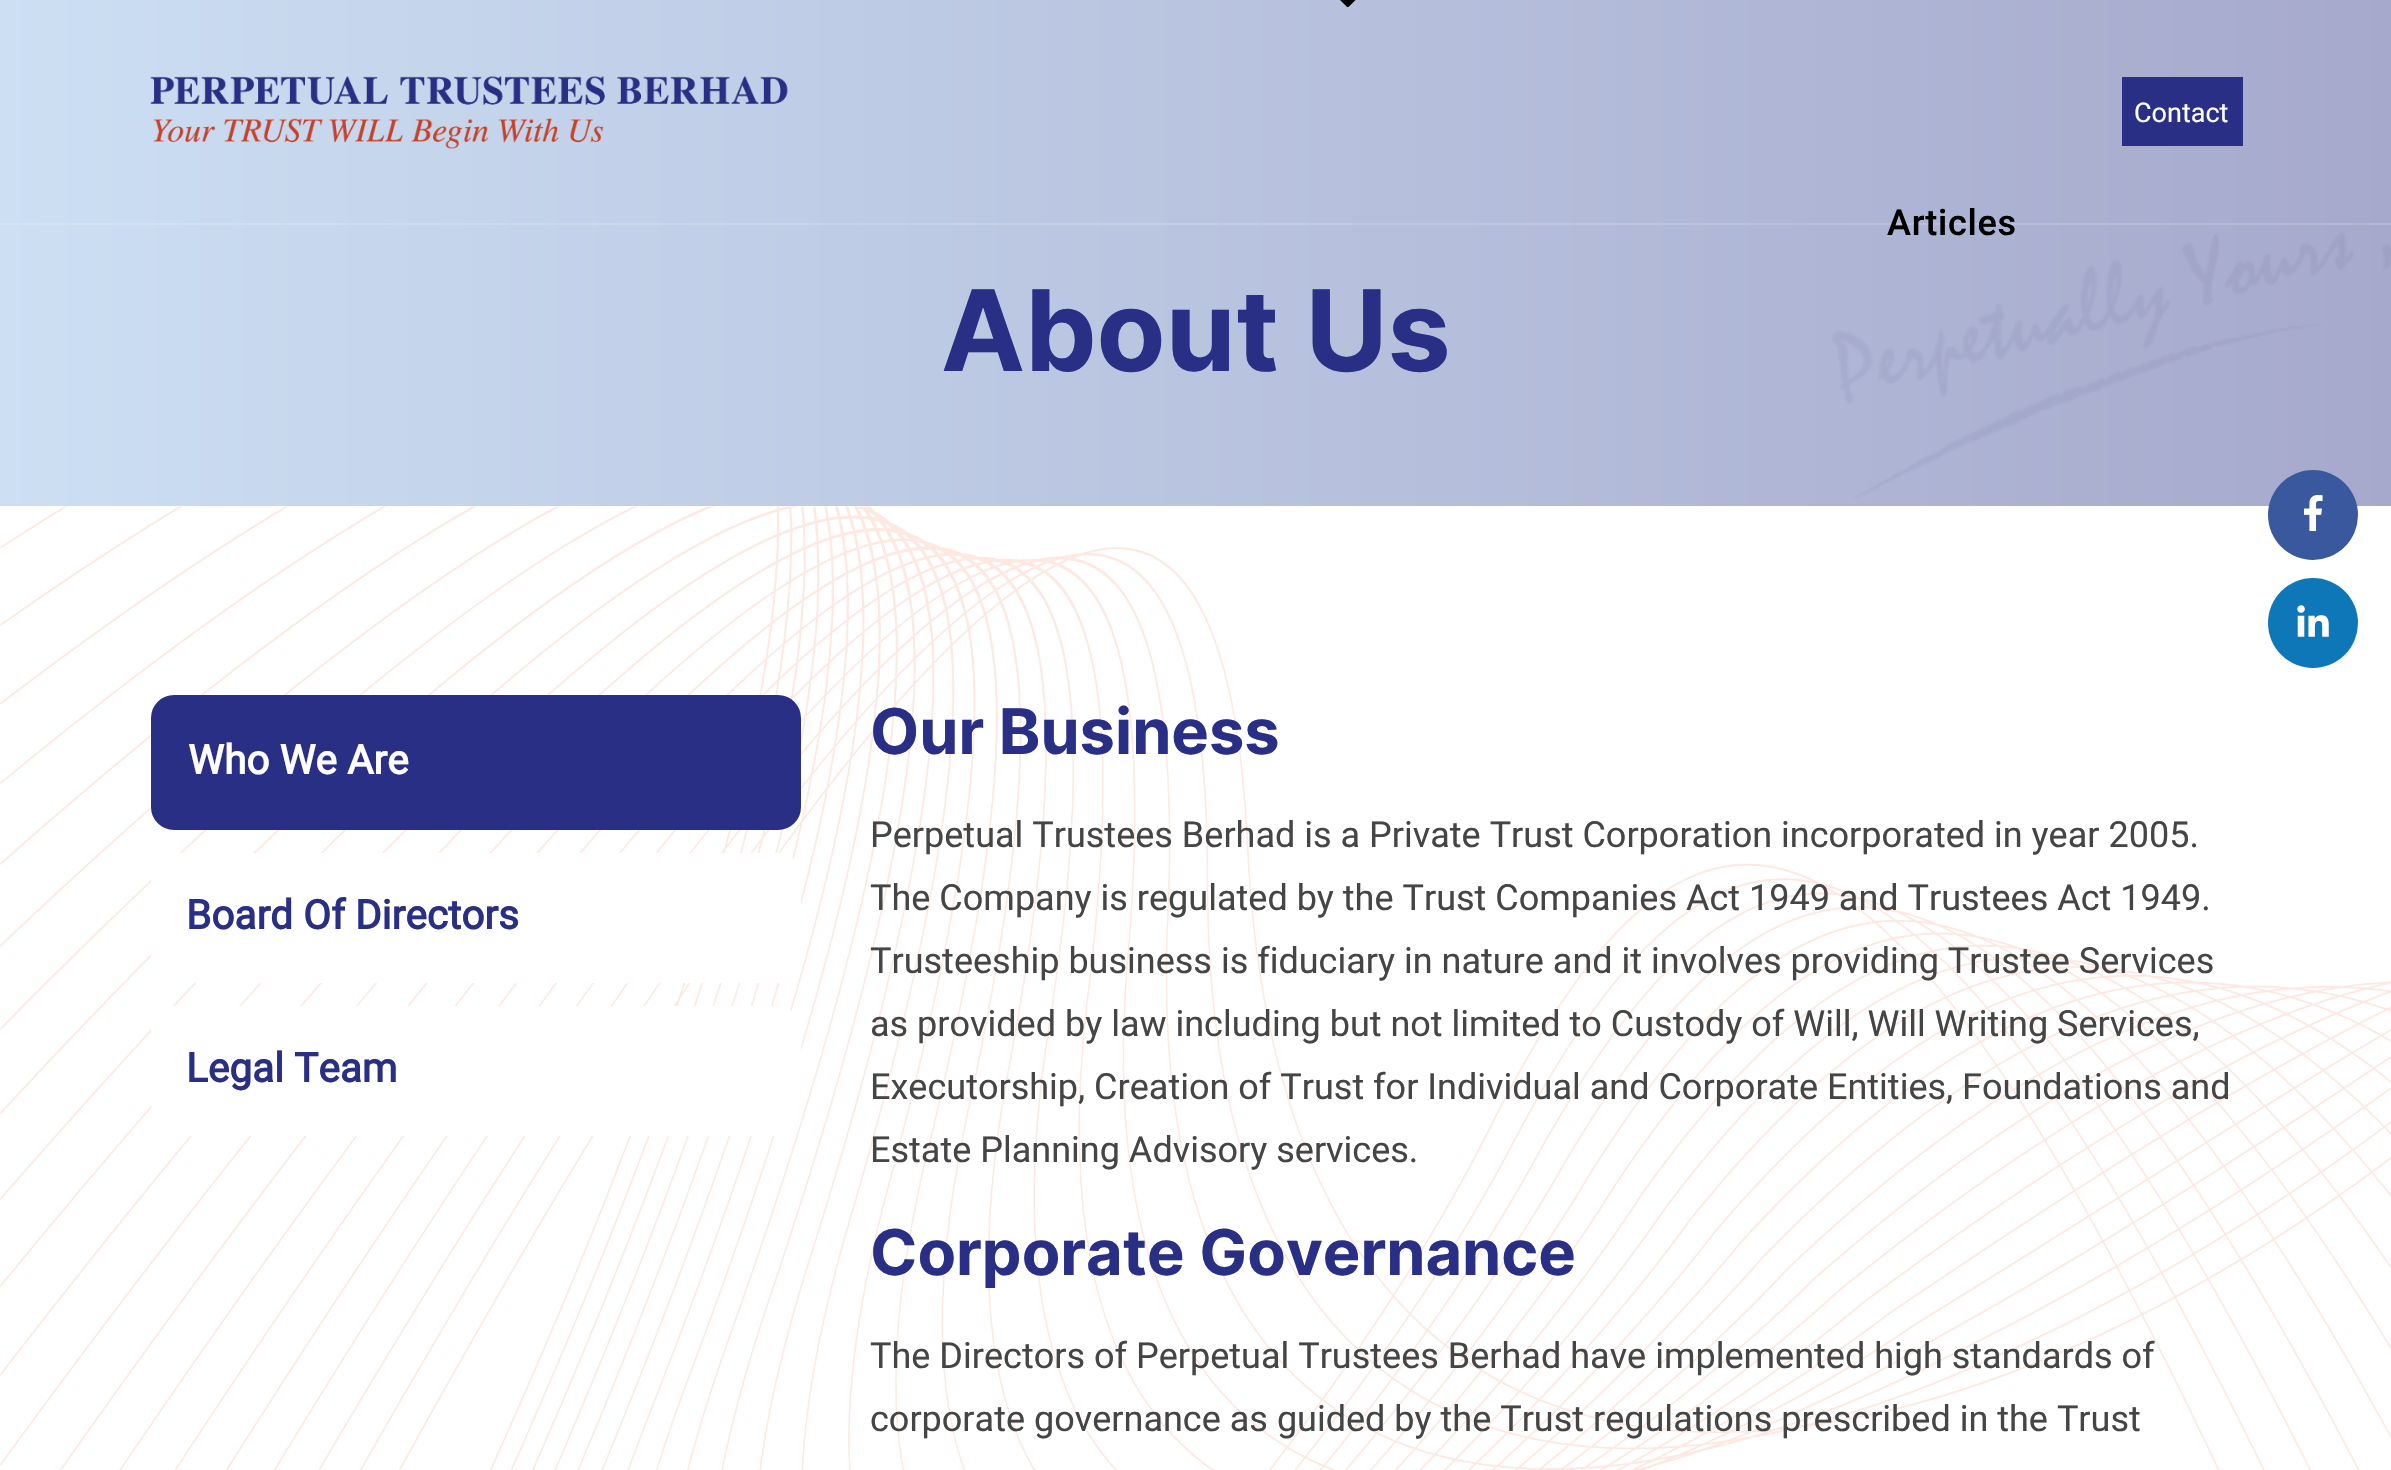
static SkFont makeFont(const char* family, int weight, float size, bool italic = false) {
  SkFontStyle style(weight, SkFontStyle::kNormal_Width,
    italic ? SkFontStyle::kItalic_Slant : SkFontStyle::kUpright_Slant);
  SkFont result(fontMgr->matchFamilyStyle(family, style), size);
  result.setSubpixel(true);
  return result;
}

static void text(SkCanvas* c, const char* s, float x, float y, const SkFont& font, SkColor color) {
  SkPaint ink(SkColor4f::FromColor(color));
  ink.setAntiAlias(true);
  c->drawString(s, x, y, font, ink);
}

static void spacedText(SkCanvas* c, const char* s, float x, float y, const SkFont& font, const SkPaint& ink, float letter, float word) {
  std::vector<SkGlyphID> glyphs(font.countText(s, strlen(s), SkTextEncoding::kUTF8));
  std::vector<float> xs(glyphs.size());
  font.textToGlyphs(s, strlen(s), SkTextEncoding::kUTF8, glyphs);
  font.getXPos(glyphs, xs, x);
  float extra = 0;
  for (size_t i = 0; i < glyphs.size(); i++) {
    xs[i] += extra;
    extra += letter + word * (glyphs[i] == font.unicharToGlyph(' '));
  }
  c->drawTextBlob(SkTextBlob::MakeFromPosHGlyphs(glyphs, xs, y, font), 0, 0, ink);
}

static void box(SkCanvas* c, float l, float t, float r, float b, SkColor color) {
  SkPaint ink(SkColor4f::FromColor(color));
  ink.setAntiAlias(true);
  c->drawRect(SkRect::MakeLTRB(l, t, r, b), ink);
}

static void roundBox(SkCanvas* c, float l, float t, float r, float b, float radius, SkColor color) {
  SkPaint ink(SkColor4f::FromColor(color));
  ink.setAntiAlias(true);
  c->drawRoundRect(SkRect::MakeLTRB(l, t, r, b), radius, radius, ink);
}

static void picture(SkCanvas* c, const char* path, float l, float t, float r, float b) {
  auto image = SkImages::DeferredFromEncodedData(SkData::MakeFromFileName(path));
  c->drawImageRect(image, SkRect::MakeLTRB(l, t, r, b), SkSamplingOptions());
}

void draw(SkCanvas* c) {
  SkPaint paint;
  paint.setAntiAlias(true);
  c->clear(0xffffffff);
  {
    const SkColor colors[] = {0xffccdff3, 0xffa6a9cc};
    const float stops[] = {0, 1};
    const SkPoint ends[] = {{0, 197}, {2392, 197}};
    paint.setShader(SkGradientShader::MakeLinear(ends, colors, stops, 2, SkTileMode::kClamp));
    paint.setAlpha(255);
  }
  c->drawRect(SkRect::MakeLTRB(0, 0, 2391, 506), paint);
  picture(c, "img_01.png", 150, 76, 788, 149);
  box(c, 2122, 77, 2243, 146, 0xff2a2f86);
  SkFont face1 = makeFont("Heebo", 400, 27);
  text(c, "Contact", 2134, 122, face1, 0xffffffff);
  picture(c, "img_02.png", 1340, 0, 1356, 8);
  {
    const SkColor colors[] = {0xffd4e4f5, 0xffb3b6d4};
    const float stops[] = {0, 1};
    const SkPoint ends[] = {{0, 197}, {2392, 197}};
    paint.setShader(SkGradientShader::MakeLinear(ends, colors, stops, 2, SkTileMode::kClamp));
    paint.setAlpha(255);
  }
  c->drawRect(SkRect::MakeLTRB(0, 223, 2391, 225), paint);
  picture(c, "img_03.png", 1832, 232, 2391, 499);
  SkFont face2 = makeFont("Heebo", 500, 36);
  paint.setShader(nullptr);
  paint.setColor(0xff000000);
  spacedText(c, "Articles", 1887, 235, face2, paint, 0.75f, 0);
  SkFont face3 = makeFont("Inter", 700, 112.5f);
  text(c, "About Us", 941, 371, face3, 0xff2a2f86);
  picture(c, "img_06.png", 0, 506, 2391, 1470);
  paint.setColor(0xff3a589e);
  c->drawCircle(2313, 515, 45, paint);
  picture(c, "img_04.png", 2304, 495, 2323, 531);
  paint.setColor(0xff0d77b7);
  c->drawCircle(2313, 623, 45, paint);
  picture(c, "img_05.png", 2297, 605, 2329, 637);
  paint.setColor(0xff2a2f86);
  c->drawRoundRect(SkRect::MakeLTRB(152, 696, 800, 829), 22, 22, paint);
  paint.setStyle(SkPaint::kStroke_Style);
  paint.setStrokeWidth(2);
  c->drawRoundRect(SkRect::MakeLTRB(152, 696, 800, 829), 22, 22, paint);
  SkFont face4 = makeFont("Heebo", 700, 40.5f);
  text(c, "Who We Are", 188, 774, face4, 0xffffffff);
  roundBox(c, 151, 853, 801, 983, 23, 0xffffffff);
  text(c, "Board Of Directors", 186, 929, face4, 0xff2a2f86);
  roundBox(c, 151, 1006, 801, 1136, 23, 0xffffffff);
  text(c, "Legal Team", 186, 1082, face4, 0xff2a2f86);
  SkFont face5 = makeFont("Inter", 700, 63);
  text(c, "Our Business", 870, 754, face5, 0xff2a2f86);
  SkFont face6 = makeFont("Heebo", 400, 36);
  text(c, "Perpetual Trustees Berhad is a Private Trust Corporation incorporated in year 2005.", 870, 847, face6, 0xff454545);
  text(c, "The Company is regulated by the Trust Companies Act 1949 and Trustees Act 1949.", 870, 910, face6, 0xff454545);
  text(c, "Trusteeship business is fiduciary in nature and it involves providing Trustee Services", 870, 973, face6, 0xff454545);
  text(c, "as provided by law including but not limited to Custody of Will, Will Writing Services,", 870, 1036, face6, 0xff454545);
  text(c, "Executorship, Creation of Trust for Individual and Corporate Entities, Foundations and", 870, 1099, face6, 0xff454545);
  text(c, "Estate Planning Advisory services.", 870, 1162, face6, 0xff454545);
  text(c, "Corporate Governance", 870, 1275, face5, 0xff2a2f86);
  text(c, "The Directors of Perpetual Trustees Berhad have implemented high standards of", 870, 1368, face6, 0xff454545);
  text(c, "corporate governance as guided by the Trust regulations prescribed in the Trust", 870, 1431, face6, 0xff454545);
}
